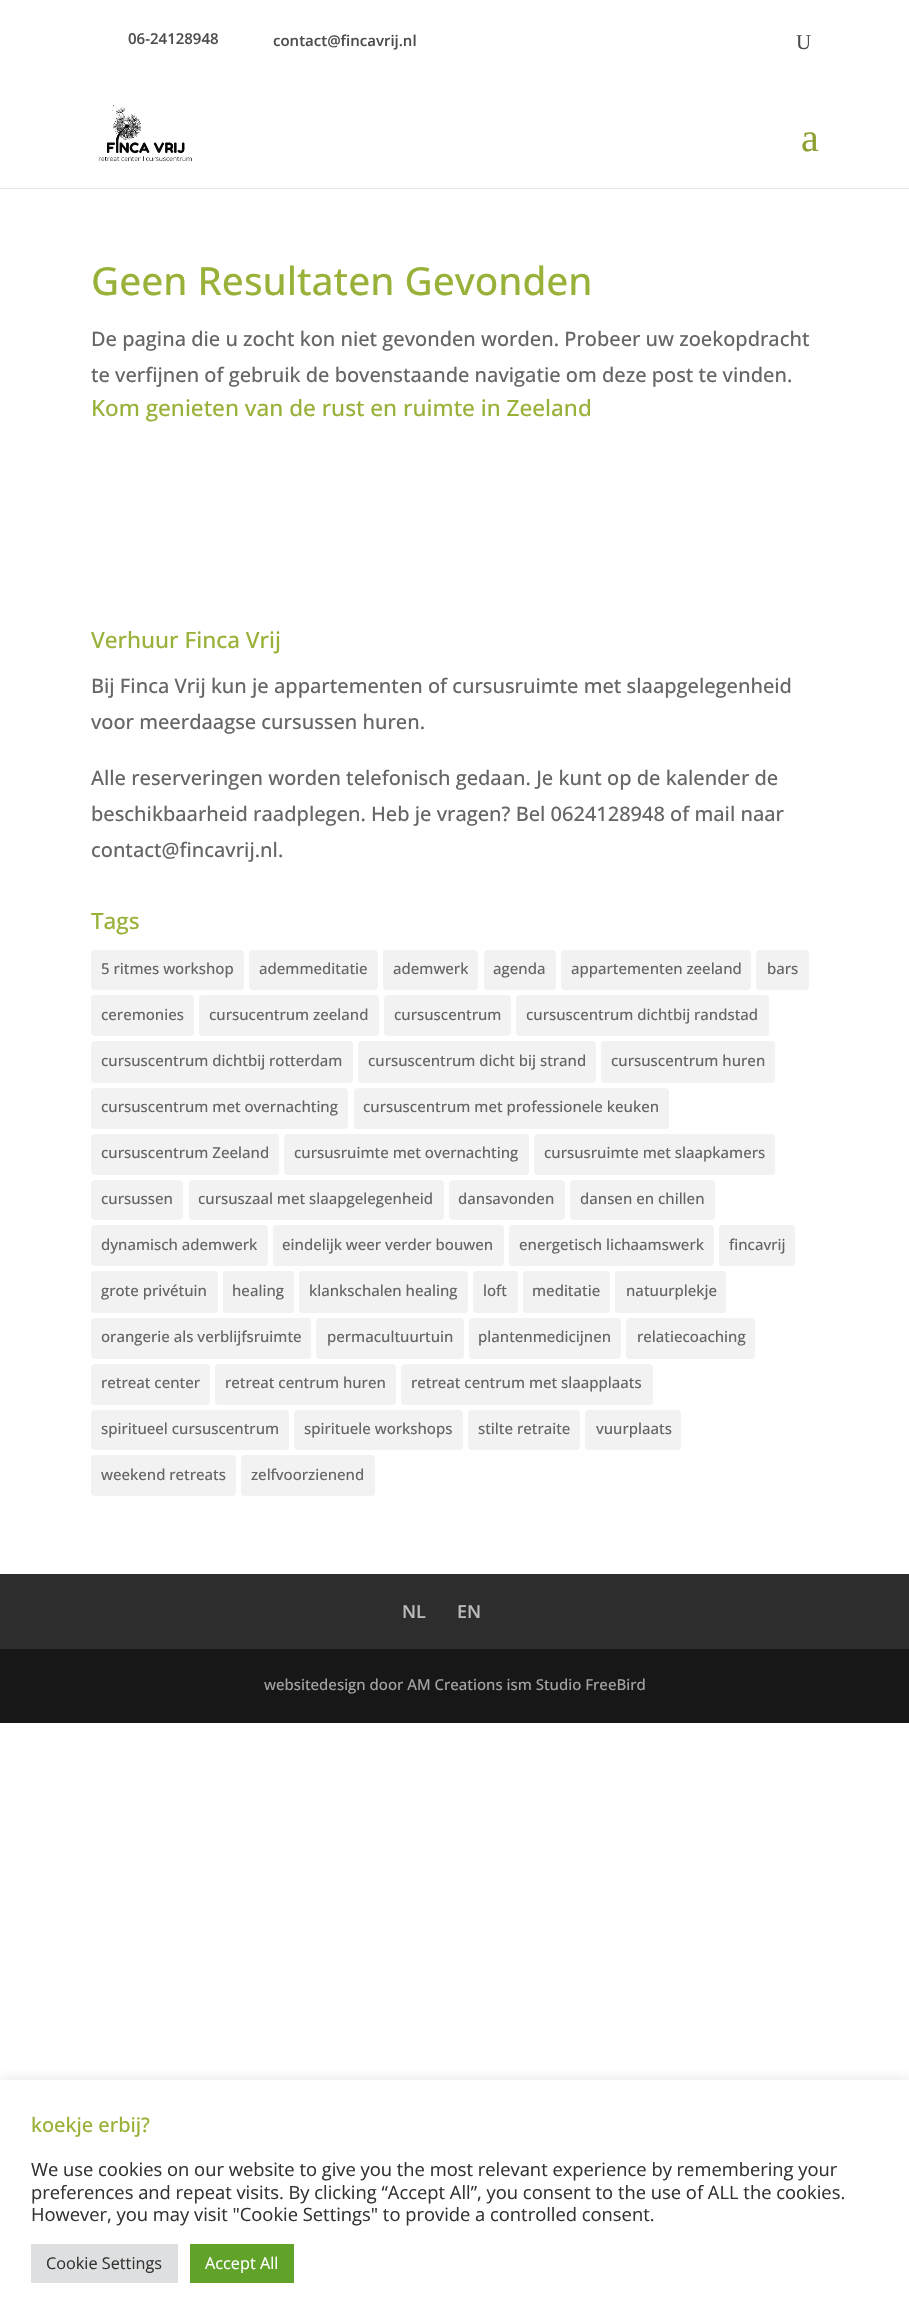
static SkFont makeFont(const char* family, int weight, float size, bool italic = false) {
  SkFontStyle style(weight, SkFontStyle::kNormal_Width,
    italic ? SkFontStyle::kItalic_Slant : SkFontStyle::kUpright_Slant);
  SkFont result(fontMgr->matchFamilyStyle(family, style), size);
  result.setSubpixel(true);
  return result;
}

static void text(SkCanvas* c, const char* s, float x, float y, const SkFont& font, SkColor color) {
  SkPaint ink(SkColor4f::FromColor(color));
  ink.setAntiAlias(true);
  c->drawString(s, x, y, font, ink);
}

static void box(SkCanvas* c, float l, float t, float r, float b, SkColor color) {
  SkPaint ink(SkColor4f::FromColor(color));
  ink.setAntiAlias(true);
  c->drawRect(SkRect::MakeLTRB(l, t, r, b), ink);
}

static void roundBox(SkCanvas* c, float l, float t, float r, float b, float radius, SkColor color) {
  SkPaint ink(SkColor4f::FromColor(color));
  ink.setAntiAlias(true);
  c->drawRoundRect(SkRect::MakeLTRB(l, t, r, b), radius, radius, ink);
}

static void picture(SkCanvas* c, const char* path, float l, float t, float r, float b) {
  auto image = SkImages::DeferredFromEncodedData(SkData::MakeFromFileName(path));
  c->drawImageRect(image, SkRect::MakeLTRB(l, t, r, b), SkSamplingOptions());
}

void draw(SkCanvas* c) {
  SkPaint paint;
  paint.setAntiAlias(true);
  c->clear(0xffffffff);
  SkFont face1 = makeFont("Open Sans", 600, 15);
  text(c, "06-24128948", 128, 44, face1, 0xff4d4d4d);
  text(c, "contact@fincavrij.nl", 273, 46, face1, 0xff4d4d4d);
  SkFont face2 = makeFont("Liberation Serif", 400, 21);
  text(c, "U", 796, 49, face2, 0xff4d4d4d);
  box(c, 0, 188, 909, 189, 0xffe6e6e6);
  picture(c, "img_01.png", 98, 105, 192, 162);
  SkFont face3 = makeFont("Liberation Serif", 400, 40);
  text(c, "a", 801, 151, face3, 0xff8da133);
  SkFont face4 = makeFont("Open Sans", 500, 38.75f);
  text(c, "Geen Resultaten Gevonden", 91, 295, face4, 0xff98b239);
  SkFont face5 = makeFont("Open Sans", 500, 20);
  text(c, "De pagina die u zocht kon niet gevonden worden. Probeer uw zoekopdracht", 91, 346, face5, 0xff666666);
  text(c, "te verfijnen of gebruik de bovenstaande navigatie om deze post te vinden.", 91, 382, face5, 0xff666666);
  SkFont face6 = makeFont("Open Sans", 500, 22.5f);
  text(c, "Kom genieten van de rust en ruimte in Zeeland", 91, 416, face6, 0xff98b239);
  text(c, "Verhuur Finca Vrij", 91, 648, face6, 0xff98b239);
  text(c, "Bij Finca Vrij kun je appartementen of cursusruimte met slaapgelegenheid", 91, 693, face5, 0xff666666);
  text(c, "voor meerdaagse cursussen huren.", 91, 729, face5, 0xff666666);
  text(c, "Alle reserveringen worden telefonisch gedaan. Je kunt op de kalender de", 91, 785, face5, 0xff666666);
  text(c, "beschikbaarheid raadplegen. Heb je vragen? Bel 0624128948 of mail naar", 91, 821, face5, 0xff666666);
  text(c, "contact@fincavrij.nl.", 91, 857, face5, 0xff666666);
  text(c, "Tags", 91, 929, face6, 0xff98b239);
  roundBox(c, 91, 950, 244, 990, 4, 0xfff2f2f2);
  SkFont face7 = makeFont("Open Sans", 500, 15);
  text(c, "5 ritmes workshop", 101, 974, face7, 0xff666666);
  roundBox(c, 249, 950, 378, 990, 4, 0xfff2f2f2);
  text(c, "ademmeditatie", 259, 974, face7, 0xff666666);
  roundBox(c, 383, 950, 478, 990, 4, 0xfff2f2f2);
  text(c, "ademwerk", 393, 974, face7, 0xff666666);
  roundBox(c, 484, 950, 556, 990, 4, 0xfff2f2f2);
  text(c, "agenda", 493, 974, face7, 0xff666666);
  roundBox(c, 561, 950, 751, 990, 4, 0xfff2f2f2);
  text(c, "appartementen zeeland", 571, 974, face7, 0xff666666);
  roundBox(c, 756, 950, 809, 990, 4, 0xfff2f2f2);
  text(c, "bars", 767, 974, face7, 0xff666666);
  roundBox(c, 91, 995, 194, 1036, 4, 0xfff2f2f2);
  text(c, "ceremonies", 101, 1020, face7, 0xff666666);
  roundBox(c, 199, 995, 379, 1036, 4, 0xfff2f2f2);
  text(c, "cursucentrum zeeland", 209, 1020, face7, 0xff666666);
  roundBox(c, 384, 995, 511, 1036, 4, 0xfff2f2f2);
  text(c, "cursuscentrum", 394, 1020, face7, 0xff666666);
  roundBox(c, 516, 995, 769, 1036, 4, 0xfff2f2f2);
  text(c, "cursuscentrum dichtbij randstad", 526, 1020, face7, 0xff666666);
  roundBox(c, 91, 1041, 353, 1083, 4, 0xfff2f2f2);
  text(c, "cursuscentrum dichtbij rotterdam", 101, 1066, face7, 0xff666666);
  roundBox(c, 358, 1041, 596, 1083, 4, 0xfff2f2f2);
  text(c, "cursuscentrum dicht bij strand", 368, 1066, face7, 0xff666666);
  roundBox(c, 601, 1041, 775, 1083, 4, 0xfff2f2f2);
  text(c, "cursuscentrum huren", 611, 1066, face7, 0xff666666);
  roundBox(c, 91, 1088, 348, 1129, 4, 0xfff2f2f2);
  text(c, "cursuscentrum met overnachting", 101, 1112, face7, 0xff666666);
  roundBox(c, 354, 1088, 669, 1129, 4, 0xfff2f2f2);
  text(c, "cursuscentrum met professionele keuken", 363, 1112, face7, 0xff666666);
  roundBox(c, 91, 1134, 279, 1175, 4, 0xfff2f2f2);
  text(c, "cursuscentrum Zeeland", 101, 1158, face7, 0xff666666);
  roundBox(c, 284, 1134, 529, 1175, 4, 0xfff2f2f2);
  text(c, "cursusruimte met overnachting", 294, 1158, face7, 0xff666666);
  roundBox(c, 534, 1134, 775, 1175, 4, 0xfff2f2f2);
  text(c, "cursusruimte met slaapkamers", 544, 1158, face7, 0xff666666);
  roundBox(c, 91, 1180, 183, 1220, 4, 0xfff2f2f2);
  text(c, "cursussen", 101, 1204, face7, 0xff666666);
  roundBox(c, 189, 1180, 444, 1220, 4, 0xfff2f2f2);
  text(c, "cursuszaal met slaapgelegenheid", 198, 1204, face7, 0xff666666);
  roundBox(c, 449, 1180, 565, 1220, 4, 0xfff2f2f2);
  text(c, "dansavonden", 458, 1204, face7, 0xff666666);
  roundBox(c, 570, 1180, 715, 1220, 4, 0xfff2f2f2);
  text(c, "dansen en chillen", 580, 1204, face7, 0xff666666);
  roundBox(c, 91, 1225, 268, 1266, 4, 0xfff2f2f2);
  text(c, "dynamisch ademwerk", 101, 1250, face7, 0xff666666);
  roundBox(c, 273, 1225, 504, 1266, 4, 0xfff2f2f2);
  text(c, "eindelijk weer verder bouwen", 282, 1250, face7, 0xff666666);
  roundBox(c, 509, 1225, 714, 1266, 4, 0xfff2f2f2);
  text(c, "energetisch lichaamswerk", 519, 1250, face7, 0xff666666);
  roundBox(c, 719, 1225, 795, 1266, 4, 0xfff2f2f2);
  text(c, "fincavrij", 729, 1250, face7, 0xff666666);
  roundBox(c, 91, 1271, 218, 1313, 4, 0xfff2f2f2);
  text(c, "grote privétuin", 101, 1296, face7, 0xff666666);
  roundBox(c, 223, 1271, 294, 1313, 4, 0xfff2f2f2);
  text(c, "healing", 232, 1296, face7, 0xff666666);
  roundBox(c, 299, 1271, 468, 1313, 4, 0xfff2f2f2);
  text(c, "klankschalen healing", 309, 1296, face7, 0xff666666);
  roundBox(c, 473, 1271, 518, 1313, 4, 0xfff2f2f2);
  text(c, "loft", 483, 1296, face7, 0xff666666);
  roundBox(c, 523, 1271, 610, 1313, 4, 0xfff2f2f2);
  text(c, "meditatie", 532, 1296, face7, 0xff666666);
  roundBox(c, 615, 1271, 726, 1313, 4, 0xfff2f2f2);
  text(c, "natuurplekje", 626, 1296, face7, 0xff666666);
  roundBox(c, 91, 1318, 311, 1359, 4, 0xfff2f2f2);
  text(c, "orangerie als verblijfsruimte", 101, 1342, face7, 0xff666666);
  roundBox(c, 316, 1318, 464, 1359, 4, 0xfff2f2f2);
  text(c, "permacultuurtuin", 327, 1342, face7, 0xff666666);
  roundBox(c, 469, 1318, 621, 1359, 4, 0xfff2f2f2);
  text(c, "plantenmedicijnen", 478, 1342, face7, 0xff666666);
  roundBox(c, 626, 1318, 755, 1359, 4, 0xfff2f2f2);
  text(c, "relatiecoaching", 637, 1342, face7, 0xff666666);
  roundBox(c, 91, 1364, 210, 1405, 4, 0xfff2f2f2);
  text(c, "retreat center", 101, 1388, face7, 0xff666666);
  roundBox(c, 215, 1364, 396, 1405, 4, 0xfff2f2f2);
  text(c, "retreat centrum huren", 225, 1388, face7, 0xff666666);
  roundBox(c, 401, 1364, 653, 1405, 4, 0xfff2f2f2);
  text(c, "retreat centrum met slaapplaats", 411, 1388, face7, 0xff666666);
  roundBox(c, 91, 1410, 289, 1450, 4, 0xfff2f2f2);
  text(c, "spiritueel cursuscentrum", 101, 1434, face7, 0xff666666);
  roundBox(c, 294, 1410, 463, 1450, 4, 0xfff2f2f2);
  text(c, "spirituele workshops", 304, 1434, face7, 0xff666666);
  roundBox(c, 468, 1410, 580, 1450, 4, 0xfff2f2f2);
  text(c, "stilte retraite", 478, 1434, face7, 0xff666666);
  roundBox(c, 585, 1410, 681, 1450, 4, 0xfff2f2f2);
  text(c, "vuurplaats", 596, 1434, face7, 0xff666666);
  roundBox(c, 91, 1455, 236, 1496, 4, 0xfff2f2f2);
  text(c, "weekend retreats", 101, 1480, face7, 0xff666666);
  roundBox(c, 241, 1455, 375, 1496, 4, 0xfff2f2f2);
  text(c, "zelfvoorzienend", 251, 1480, face7, 0xff666666);
  box(c, 0, 1574, 909, 1649, 0xff2d2d2d);
  SkFont face8 = makeFont("Open Sans", 600, 18);
  text(c, "NL", 402, 1618, face8, 0xffbbbbbb);
  text(c, "EN", 457, 1618, face8, 0xffbbbbbb);
  box(c, 0, 1649, 909, 1723, 0xff171717);
  text(c, "websitedesign door AM Creations ism Studio FreeBird", 264, 1690, face7, 0xffa3a3a3);
  c->save();
  c->clipRect(SkRect::MakeLTRB(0, 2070, 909, 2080));
  paint.setColor(0x4dacabab);
  paint.setMaskFilter(SkMaskFilter::MakeBlur(kNormal_SkBlurStyle, 6));
  c->drawRect(SkRect::MakeLTRB(0, 2079, 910, 2319), paint);
  paint.setMaskFilter(nullptr);
  c->restore();
  text(c, "koekje erbij?", 31, 2132, face5, 0xff98b239);
  SkFont face9 = makeFont("Open Sans", 400, 18.35f);
  text(c, "We use cookies on our website to give you the most relevant experience by remembering your", 31, 2176, face9, 0xff333333);
  text(c, "preferences and repeat visits. By clicking “Accept All”, you consent to the use of ALL the cookies.", 31, 2199, face9, 0xff333333);
  text(c, "However, you may visit \"Cookie Settings\" to provide a controlled consent.", 31, 2221, face9, 0xff333333);
  box(c, 31, 2244, 178, 2283, 0xffdedfe0);
  SkFont face10 = makeFont("Open Sans", 400, 16.25f);
  text(c, "Cookie Settings", 46, 2269, face10, 0xff333333);
  box(c, 190, 2244, 294, 2283, 0xff61a229);
  text(c, "Accept All", 205, 2269, face10, 0xffffffff);
}
